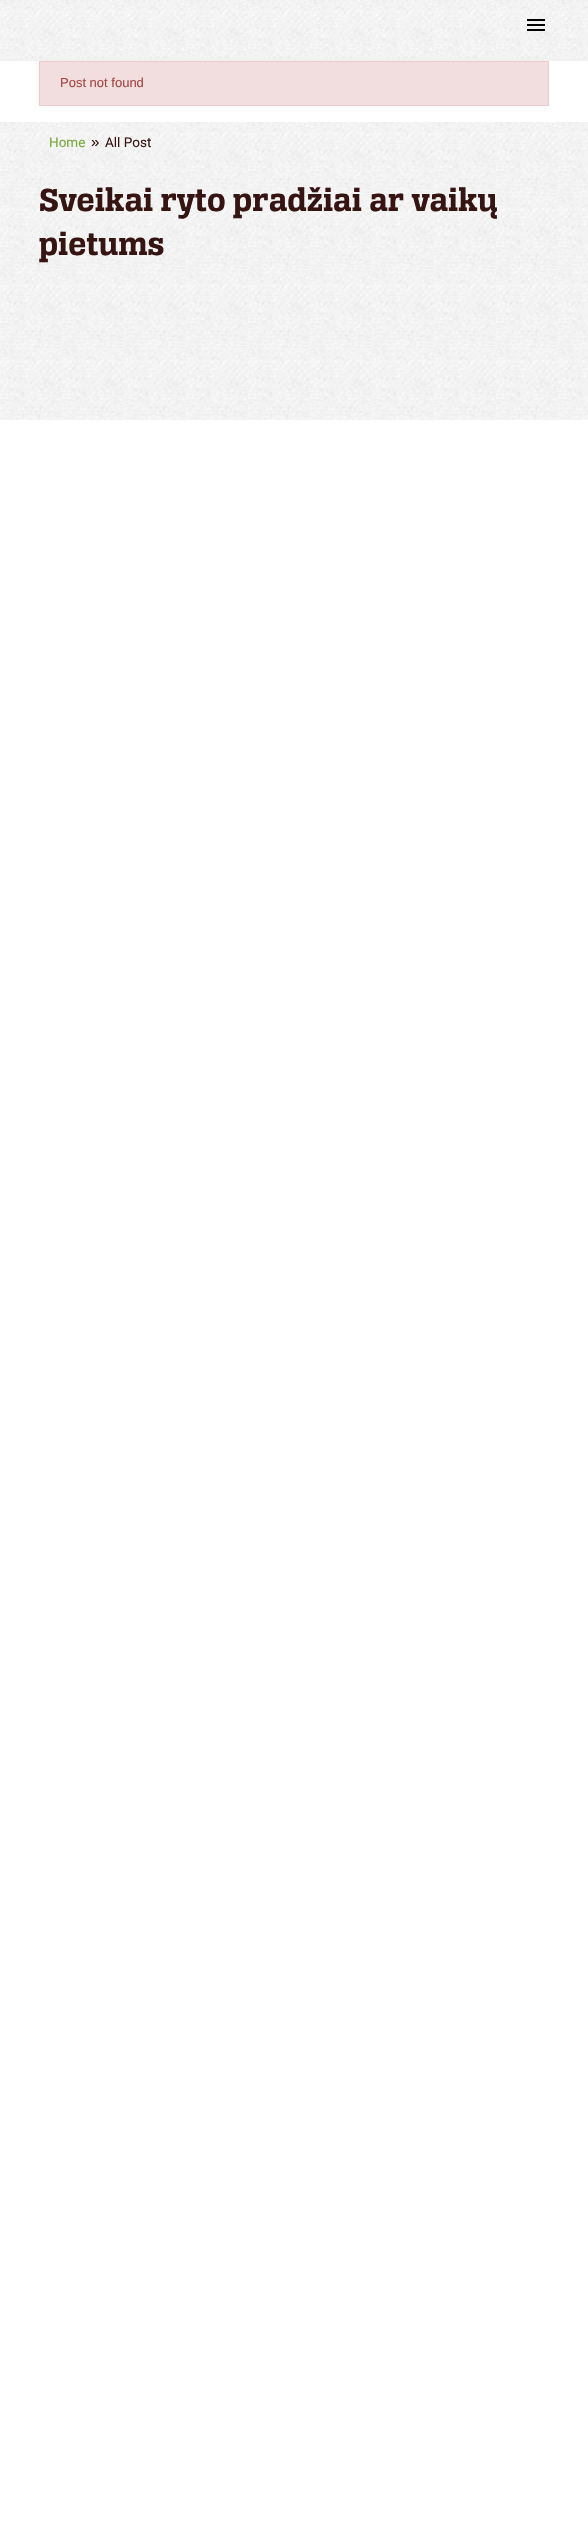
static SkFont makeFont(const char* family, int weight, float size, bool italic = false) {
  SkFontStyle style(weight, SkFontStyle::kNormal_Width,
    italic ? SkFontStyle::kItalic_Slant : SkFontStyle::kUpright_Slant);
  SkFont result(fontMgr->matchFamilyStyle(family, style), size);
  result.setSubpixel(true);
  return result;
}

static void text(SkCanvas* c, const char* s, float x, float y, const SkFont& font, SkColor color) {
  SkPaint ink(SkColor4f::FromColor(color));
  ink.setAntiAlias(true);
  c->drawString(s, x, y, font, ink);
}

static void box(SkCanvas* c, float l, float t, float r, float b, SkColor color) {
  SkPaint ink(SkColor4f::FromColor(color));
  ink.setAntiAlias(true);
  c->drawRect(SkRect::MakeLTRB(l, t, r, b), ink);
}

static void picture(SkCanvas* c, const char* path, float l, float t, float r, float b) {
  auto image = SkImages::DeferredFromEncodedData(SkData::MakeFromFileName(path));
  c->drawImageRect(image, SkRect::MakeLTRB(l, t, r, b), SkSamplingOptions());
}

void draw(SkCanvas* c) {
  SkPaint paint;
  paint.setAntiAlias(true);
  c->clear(0xffffffff);
  box(c, 0, 58, 588, 61, 0xfff1f1f1);
  picture(c, "img_01.png", 0, 0, 588, 58);
  picture(c, "img_02.png", 527, 19, 545, 31);
  paint.setColor(0xfff2dede);
  c->drawRect(SkRect::MakeLTRB(39.5f, 61.5f, 548.5f, 105.5f), paint);
  paint.setStyle(SkPaint::kStroke_Style);
  paint.setStrokeWidth(1);
  paint.setColor(0xffebcccc);
  c->drawRect(SkRect::MakeLTRB(39.5f, 61.5f, 548.5f, 105.5f), paint);
  SkFont face1 = makeFont("Liberation Sans", 400, 13);
  text(c, "Post not found", 60, 87, face1, 0xffa94442);
  picture(c, "img_03.png", 0, 122, 588, 420);
  SkFont face2 = makeFont("Roboto", 400, 13.5f);
  text(c, "Home", 49, 147, face2, 0xff7aa93c);
  SkFont face3 = makeFont("Liberation Sans", 400, 15);
  text(c, "»", 91, 147, face3, 0xff361412);
  text(c, "All Post", 105, 147, face2, 0xff361412);
  SkFont face4 = makeFont("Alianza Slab", 700, 34);
  text(c, "Sveikai ryto pradžiai ar vaikų", 39, 211, face4, 0xff361412);
  text(c, "pietums", 39, 255, face4, 0xff361412);
}
